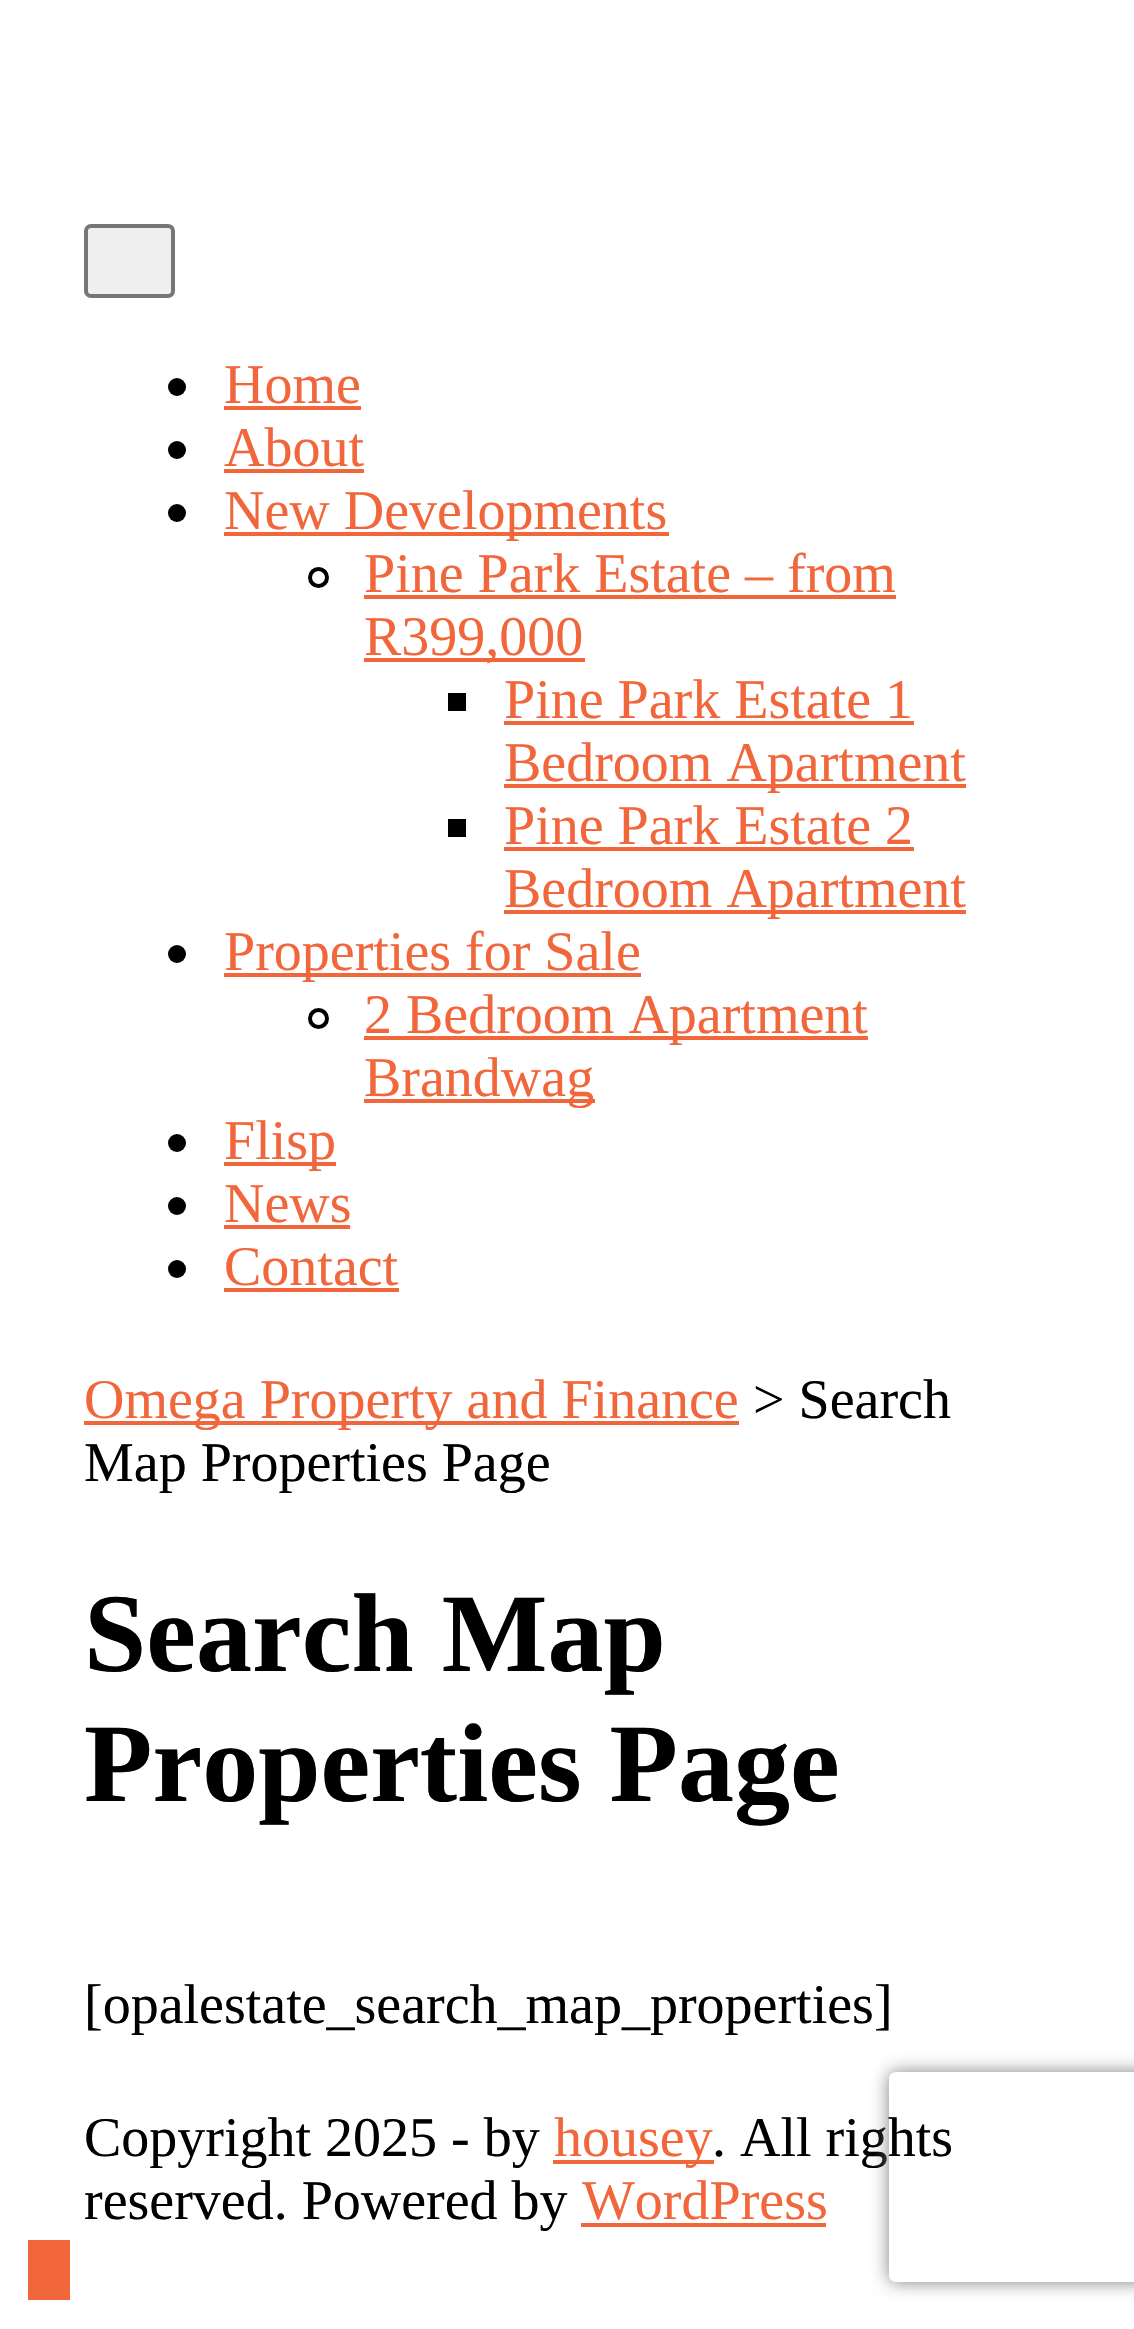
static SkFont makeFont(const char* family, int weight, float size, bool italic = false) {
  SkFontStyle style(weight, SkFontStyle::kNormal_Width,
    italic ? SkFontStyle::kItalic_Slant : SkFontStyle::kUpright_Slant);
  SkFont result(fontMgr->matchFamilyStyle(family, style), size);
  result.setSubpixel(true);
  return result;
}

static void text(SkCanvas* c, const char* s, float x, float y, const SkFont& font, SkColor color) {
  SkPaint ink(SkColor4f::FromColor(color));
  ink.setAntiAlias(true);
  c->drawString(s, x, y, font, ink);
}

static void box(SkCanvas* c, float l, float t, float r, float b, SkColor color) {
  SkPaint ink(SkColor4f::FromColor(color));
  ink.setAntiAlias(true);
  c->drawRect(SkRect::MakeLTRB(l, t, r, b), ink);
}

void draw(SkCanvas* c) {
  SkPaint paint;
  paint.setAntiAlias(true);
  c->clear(0xffffffff);
  box(c, 28, 2240, 70, 2300, 0xfff2663c);
  paint.setColor(0xffefefef);
  c->drawRoundRect(SkRect::MakeLTRB(86, 226, 173, 296), 5, 5, paint);
  paint.setStyle(SkPaint::kStroke_Style);
  paint.setStrokeWidth(4);
  paint.setColor(0xff767676);
  c->drawRoundRect(SkRect::MakeLTRB(86, 226, 173, 296), 5, 5, paint);
  paint.setStyle(SkPaint::kFill_Style);
  paint.setColor(0xff000000);
  c->drawCircle(177, 387, 9, paint);
  SkFont face1 = makeFont("Liberation Serif", 400, 56);
  text(c, "Home", 224, 403, face1, 0xfff2663c);
  box(c, 224, 406, 361, 410, 0xfff2663c);
  c->drawCircle(177, 450, 9, paint);
  text(c, "About", 224, 466, face1, 0xfff2663c);
  box(c, 224, 469, 364, 473, 0xfff2663c);
  c->drawCircle(177, 513, 9, paint);
  box(c, 224, 532, 669, 536, 0xfff2663c);
  text(c, "New Developments", 224, 529, face1, 0xfff2663c);
  paint.setStyle(SkPaint::kStroke_Style);
  c->drawCircle(318.5f, 577.5f, 8.5f, paint);
  text(c, "Pine Park Estate – from", 364, 592, face1, 0xfff2663c);
  box(c, 364, 595, 896, 599, 0xfff2663c);
  box(c, 364, 658, 585, 662, 0xfff2663c);
  text(c, "R399,000", 364, 655, face1, 0xfff2663c);
  box(c, 448, 693, 466, 711, 0xff000000);
  text(c, "Pine Park Estate 1", 504, 718, face1, 0xfff2663c);
  box(c, 504, 721, 914, 725, 0xfff2663c);
  box(c, 504, 784, 966, 788, 0xfff2663c);
  text(c, "Bedroom Apartment", 504, 781, face1, 0xfff2663c);
  box(c, 448, 819, 466, 837, 0xff000000);
  text(c, "Pine Park Estate 2", 504, 844, face1, 0xfff2663c);
  box(c, 504, 847, 914, 851, 0xfff2663c);
  box(c, 504, 910, 966, 914, 0xfff2663c);
  text(c, "Bedroom Apartment", 504, 907, face1, 0xfff2663c);
  paint.setStyle(SkPaint::kFill_Style);
  c->drawCircle(177, 954, 9, paint);
  box(c, 224, 973, 641, 977, 0xfff2663c);
  text(c, "Properties for Sale", 224, 970, face1, 0xfff2663c);
  paint.setStyle(SkPaint::kStroke_Style);
  c->drawCircle(318.5f, 1018.5f, 8.5f, paint);
  box(c, 364, 1036, 868, 1040, 0xfff2663c);
  text(c, "2 Bedroom Apartment", 364, 1033, face1, 0xfff2663c);
  box(c, 364, 1099, 595, 1103, 0xfff2663c);
  text(c, "Brandwag", 364, 1096, face1, 0xfff2663c);
  paint.setStyle(SkPaint::kFill_Style);
  c->drawCircle(177, 1143, 9, paint);
  box(c, 224, 1162, 336, 1166, 0xfff2663c);
  text(c, "Flisp", 224, 1159, face1, 0xfff2663c);
  c->drawCircle(177, 1206, 9, paint);
  text(c, "News", 224, 1222, face1, 0xfff2663c);
  box(c, 224, 1225, 350, 1229, 0xfff2663c);
  c->drawCircle(177, 1269, 9, paint);
  text(c, "Contact", 224, 1285, face1, 0xfff2663c);
  box(c, 224, 1288, 399, 1292, 0xfff2663c);
  box(c, 84, 1421, 739, 1425, 0xfff2663c);
  text(c, "Omega Property and Finance", 84, 1418, face1, 0xfff2663c);
  text(c, "> Search", 753, 1418, face1, 0xff000000);
  text(c, "Map Properties Page", 84, 1481, face1, 0xff000000);
  SkFont face2 = makeFont("Liberation Serif", 700, 112);
  text(c, "Search Map", 84, 1671, face2, 0xff000000);
  text(c, "Properties Page", 84, 1801, face2, 0xff000000);
  text(c, "[opalestate_search_map_properties]", 84, 2023, face1, 0xff000000);
  text(c, "Copyright 2025 - by", 84, 2156, face1, 0xff000000);
  box(c, 553, 2160, 714, 2164, 0xfff2663c);
  text(c, "housey", 554, 2156, face1, 0xfff2663c);
  text(c, ". All rights", 712, 2156, face1, 0xff000000);
  text(c, "reserved. Powered by", 84, 2219, face1, 0xff000000);
  text(c, "WordPress", 582, 2219, face1, 0xfff2663c);
  box(c, 581, 2223, 826, 2227, 0xfff2663c);
  c->save();
  c->clipPath(SkPathBuilder(SkPathFillType::kEvenOdd).moveTo(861, 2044).lineTo(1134, 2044).lineTo(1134, 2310).lineTo(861, 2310).close().moveTo(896, 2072).lineTo(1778, 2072).cubicTo(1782, 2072, 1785, 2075, 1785, 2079).lineTo(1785, 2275).cubicTo(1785, 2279, 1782, 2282, 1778, 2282).lineTo(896, 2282).cubicTo(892, 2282, 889, 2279, 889, 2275).lineTo(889, 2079).cubicTo(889, 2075, 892, 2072, 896, 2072).close().detach(), true);
  paint.setColor(0xff808080);
  paint.setMaskFilter(SkMaskFilter::MakeBlur(kNormal_SkBlurStyle, 9));
  c->drawRoundRect(SkRect::MakeLTRB(889, 2072, 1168, 2282), 7, 7, paint);
  paint.setMaskFilter(nullptr);
  c->restore();
}
